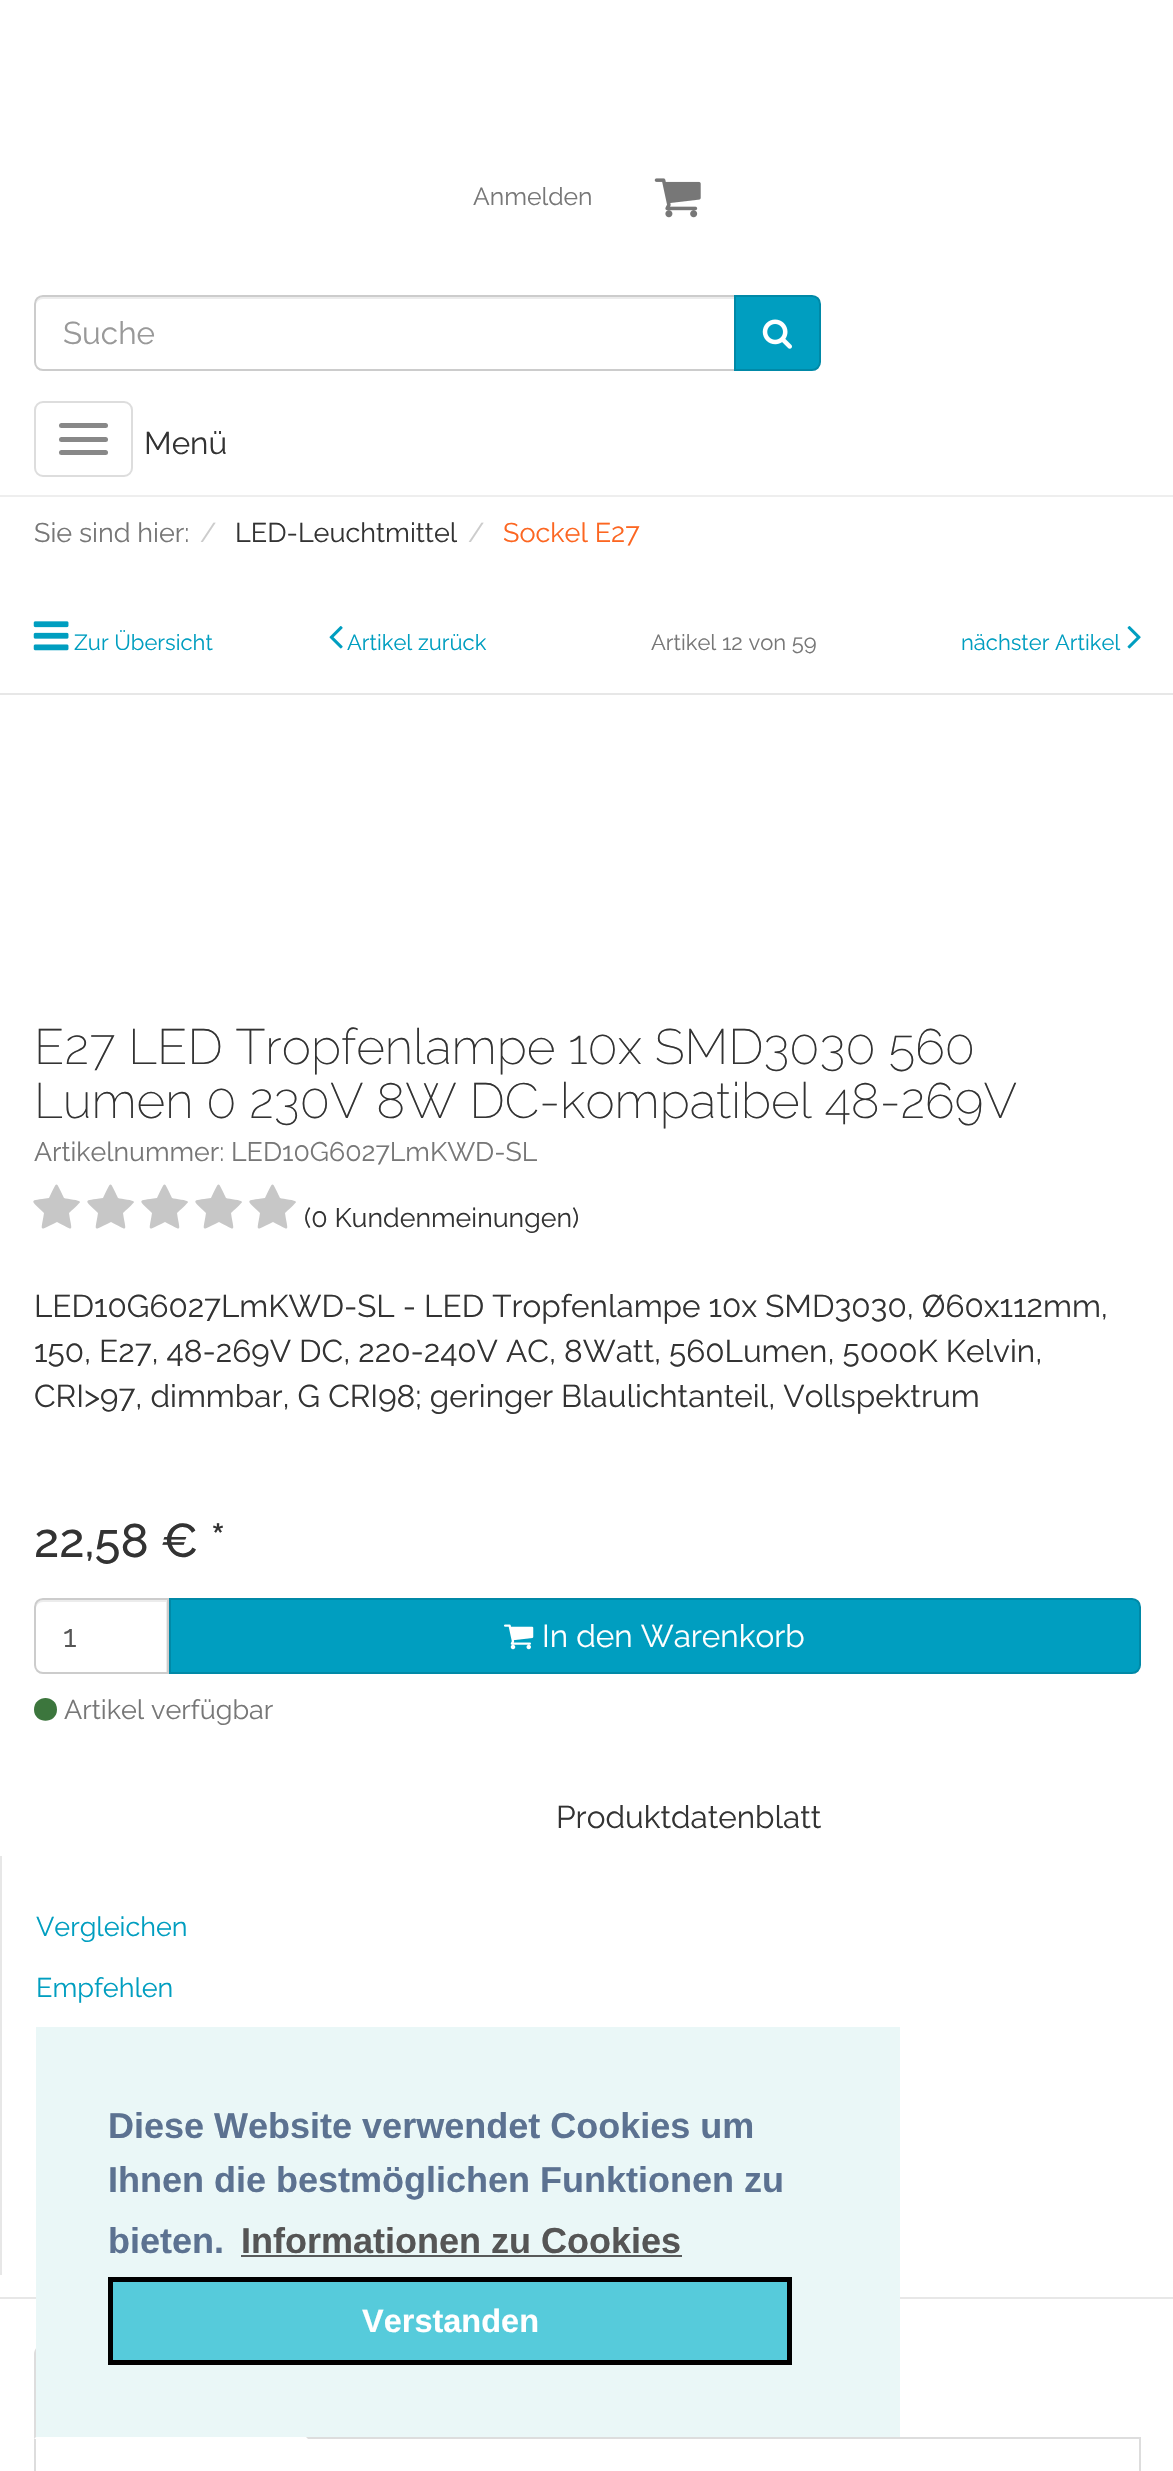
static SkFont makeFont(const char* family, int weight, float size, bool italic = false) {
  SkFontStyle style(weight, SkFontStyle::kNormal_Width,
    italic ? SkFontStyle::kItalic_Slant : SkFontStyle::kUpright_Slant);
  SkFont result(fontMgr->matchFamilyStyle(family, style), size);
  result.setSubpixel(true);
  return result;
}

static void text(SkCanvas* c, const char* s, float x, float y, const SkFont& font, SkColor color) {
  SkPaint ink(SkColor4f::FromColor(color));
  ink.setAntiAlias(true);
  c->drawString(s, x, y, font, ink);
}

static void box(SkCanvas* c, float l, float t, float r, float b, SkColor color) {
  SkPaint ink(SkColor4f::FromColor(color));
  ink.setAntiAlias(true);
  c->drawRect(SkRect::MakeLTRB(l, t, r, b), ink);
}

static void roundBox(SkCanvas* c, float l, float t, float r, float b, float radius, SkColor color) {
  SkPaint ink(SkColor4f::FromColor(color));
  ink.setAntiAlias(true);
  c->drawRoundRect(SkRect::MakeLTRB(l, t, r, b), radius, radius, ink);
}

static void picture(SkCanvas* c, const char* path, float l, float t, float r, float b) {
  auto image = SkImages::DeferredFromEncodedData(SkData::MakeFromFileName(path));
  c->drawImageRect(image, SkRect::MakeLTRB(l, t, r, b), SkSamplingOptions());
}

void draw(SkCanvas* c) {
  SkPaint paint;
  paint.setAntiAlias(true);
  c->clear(0xffffffff);
  SkFont face1 = makeFont("Raleway", 400, 24.75f);
  text(c, "Anmelden", 473, 205, face1, 0xff777777);
  picture(c, "img_01.png", 654, 178, 701, 218);
  paint.setColor(0xffececec);
  c->drawPath(SkPathBuilder().moveTo(43, 299).lineTo(734, 299).lineTo(734, 297).lineTo(43, 297).cubicTo(38, 297, 36, 302, 36, 306).cubicTo(36, 302, 39, 299, 43, 299).close().detach(), paint);
  paint.setStyle(SkPaint::kStroke_Style);
  paint.setStrokeWidth(2);
  paint.setColor(0xffcccccc);
  c->drawPath(SkPathBuilder().moveTo(43, 296).lineTo(735, 296).lineTo(735, 370).lineTo(43, 370).cubicTo(38.5f, 370, 35, 366.5f, 35, 362).lineTo(35, 304).cubicTo(35, 299.5f, 38.5f, 296, 43, 296).close().detach(), paint);
  SkFont face2 = makeFont("Raleway", 400, 31.5f);
  text(c, "Suche", 63, 344, face2, 0xff999999);
  paint.setStyle(SkPaint::kFill_Style);
  paint.setColor(0xff009ec0);
  c->drawPath(SkPathBuilder().moveTo(735, 296).lineTo(812, 296).cubicTo(816.5f, 296, 820, 299.5f, 820, 304).lineTo(820, 362).cubicTo(820, 366.5f, 816.5f, 370, 812, 370).lineTo(735, 370).close().detach(), paint);
  paint.setStyle(SkPaint::kStroke_Style);
  paint.setColor(0xff0089a7);
  c->drawPath(SkPathBuilder().moveTo(735, 296).lineTo(812, 296).cubicTo(816.5f, 296, 820, 299.5f, 820, 304).lineTo(820, 362).cubicTo(820, 366.5f, 816.5f, 370, 812, 370).lineTo(735, 370).close().detach(), paint);
  picture(c, "img_02.png", 762, 319, 792, 349);
  box(c, 0, 495, 1173, 497, 0xffeeeeee);
  paint.setColor(0xffdddddd);
  c->drawRoundRect(SkRect::MakeLTRB(35, 402, 132, 476), 8, 8, paint);
  roundBox(c, 59, 423, 108, 428, 2.5f, 0xff888888);
  roundBox(c, 59, 437, 108, 442, 2.5f, 0xff888888);
  roundBox(c, 59, 450, 108, 455, 2.5f, 0xff888888);
  text(c, "Menü", 144, 454, face2, 0xff333333);
  SkFont face3 = makeFont("Raleway", 400, 27);
  text(c, "Sie sind hier:", 34, 542, face3, 0xff777777);
  text(c, "/", 200, 542, face3, 0xffcccccc);
  text(c, "LED-Leuchtmittel", 235, 542, face3, 0xff333333);
  text(c, "/", 468, 542, face3, 0xffcccccc);
  text(c, "Sockel E27", 503, 542, face3, 0xfffc6621);
  box(c, 0, 693, 1173, 695, 0xffe7e7e7);
  picture(c, "img_03.png", 33, 621, 69, 651);
  SkFont face4 = makeFont("Raleway", 400, 22);
  text(c, "Zur Übersicht", 74, 650, face4, 0xff009ec0);
  picture(c, "img_04.png", 329, 626, 343, 649);
  text(c, "Artikel zurück", 347, 650, face4, 0xff009ec0);
  text(c, "Artikel 12 von 59", 651, 650, face4, 0xff777777);
  text(c, "nächster Artikel", 961, 650, face4, 0xff009ec0);
  picture(c, "img_05.png", 1127, 626, 1141, 649);
  box(c, 0, 2297, 1173, 2299, 0xffe7e7e7);
  SkFont face5 = makeFont("Raleway", 200, 49.5f);
  text(c, "E27 LED Tropfenlampe 10x SMD3030 560", 34, 1064, face5, 0xff333333);
  text(c, "Lumen 0 230V 8W DC-kompatibel 48-269V", 34, 1118, face5, 0xff333333);
  SkFont face6 = makeFont("Raleway", 400, 26.75f);
  text(c, "Artikelnummer: LED10G6027LmKWD-SL", 34, 1161, face6, 0xff777777);
  paint.setStyle(SkPaint::kFill_Style);
  paint.setColor(0xffc7c7c7);
  c->drawPath(SkPathBuilder().moveTo(80, 1202).cubicTo(80, 1200, 67, 1199, 64, 1198).cubicTo(55, 1180, 58, 1180, 49, 1198).cubicTo(28, 1201, 30, 1199, 44, 1213).cubicTo(41, 1233, 38, 1231, 57, 1222).cubicTo(75, 1231, 72, 1233, 69, 1213).cubicTo(71, 1211, 80, 1203, 80, 1202).close().detach(), paint);
  c->drawPath(SkPathBuilder().moveTo(134, 1202).cubicTo(134, 1200, 121, 1199, 118, 1198).cubicTo(109, 1180, 112, 1180, 103, 1198).cubicTo(82, 1201, 84, 1199, 98, 1213).cubicTo(95, 1233, 92, 1231, 111, 1222).cubicTo(129, 1231, 126, 1233, 123, 1213).cubicTo(125, 1211, 134, 1203, 134, 1202).close().detach(), paint);
  c->drawPath(SkPathBuilder().moveTo(188, 1202).cubicTo(188, 1200, 175, 1199, 172, 1198).cubicTo(163, 1180, 166, 1180, 157, 1198).cubicTo(136, 1201, 138, 1199, 152, 1213).cubicTo(149, 1233, 146, 1231, 165, 1222).cubicTo(183, 1231, 180, 1233, 177, 1213).cubicTo(179, 1211, 188, 1203, 188, 1202).close().detach(), paint);
  c->drawPath(SkPathBuilder().moveTo(242, 1202).cubicTo(242, 1200, 229, 1199, 226, 1198).cubicTo(217, 1180, 220, 1180, 211, 1198).cubicTo(190, 1201, 192, 1199, 206, 1213).cubicTo(203, 1233, 200, 1231, 219, 1222).cubicTo(237, 1231, 234, 1233, 231, 1213).cubicTo(233, 1211, 242, 1203, 242, 1202).close().detach(), paint);
  c->drawPath(SkPathBuilder().moveTo(296, 1202).cubicTo(296, 1200, 283, 1199, 280, 1198).cubicTo(271, 1180, 274, 1180, 265, 1198).cubicTo(244, 1201, 246, 1199, 260, 1213).cubicTo(257, 1233, 254, 1231, 273, 1222).cubicTo(291, 1231, 288, 1233, 285, 1213).cubicTo(287, 1211, 296, 1203, 296, 1202).close().detach(), paint);
  text(c, "(0 Kundenmeinungen)", 304, 1227, face6, 0xff333333);
  text(c, "LED10G6027LmKWD-SL - LED Tropfenlampe 10x SMD3030, Ø60x112mm,", 34, 1317, face2, 0xff333333);
  text(c, "150, E27, 48-269V DC, 220-240V AC, 8Watt, 560Lumen, 5000K Kelvin,", 34, 1362, face2, 0xff333333);
  text(c, "CRI>97, dimmbar, G CRI98; geringer Blaulichtanteil, Vollspektrum", 34, 1407, face2, 0xff333333);
  SkFont face7 = makeFont("Raleway", 500, 47.25f);
  text(c, "22,58 € *", 34, 1557, face7, 0xff333333);
  paint.setColor(0xffececec);
  c->drawPath(SkPathBuilder().moveTo(43, 1602).lineTo(166, 1602).lineTo(166, 1672).lineTo(167, 1672).lineTo(167, 1600).lineTo(43, 1600).cubicTo(39, 1600, 36, 1603, 36, 1607).lineTo(36, 1609).cubicTo(36, 1605, 39, 1602, 43, 1602).close().detach(), paint);
  paint.setStyle(SkPaint::kStroke_Style);
  paint.setColor(0xffcccccc);
  c->drawPath(SkPathBuilder().moveTo(43, 1599).lineTo(168, 1599).lineTo(168, 1673).lineTo(43, 1673).cubicTo(38.5f, 1673, 35, 1669.5f, 35, 1665).lineTo(35, 1607).cubicTo(35, 1602.5f, 38.5f, 1599, 43, 1599).close().detach(), paint);
  text(c, "1", 63, 1647, face2, 0xff555555);
  paint.setStyle(SkPaint::kFill_Style);
  paint.setColor(0xff009ec0);
  c->drawPath(SkPathBuilder().moveTo(170, 1599).lineTo(1132, 1599).cubicTo(1136.5f, 1599, 1140, 1602.5f, 1140, 1607).lineTo(1140, 1665).cubicTo(1140, 1669.5f, 1136.5f, 1673, 1132, 1673).lineTo(170, 1673).close().detach(), paint);
  paint.setStyle(SkPaint::kStroke_Style);
  paint.setColor(0xff0089a7);
  c->drawPath(SkPathBuilder().moveTo(170, 1599).lineTo(1132, 1599).cubicTo(1136.5f, 1599, 1140, 1602.5f, 1140, 1607).lineTo(1140, 1665).cubicTo(1140, 1669.5f, 1136.5f, 1673, 1132, 1673).lineTo(170, 1673).close().detach(), paint);
  picture(c, "img_06.png", 504, 1624, 534, 1650);
  text(c, "In den Warenkorb", 542, 1647, face2, 0xffffffff);
  paint.setStyle(SkPaint::kFill_Style);
  paint.setColor(0xff3c763d);
  c->drawPath(SkPathBuilder().moveTo(57, 1709.5f).cubicTo(57, 1694, 34, 1694, 34, 1709.5f).cubicTo(34, 1724.5f, 57, 1724.5f, 57, 1709.5f).close().detach(), paint);
  text(c, "Artikel verfügbar", 64, 1719, face3, 0xff777777);
  text(c, "Produktdatenblatt", 556, 1828, face2, 0xff333333);
  box(c, 0, 1856, 2, 2275, 0xffe7e7e7);
  text(c, "Vergleichen", 36, 1936, face3, 0xff009ec0);
  text(c, "Empfehlen", 36, 1997, face3, 0xff009ec0);
  box(c, 308, 2437, 1141, 2439, 0xffdddddd);
  paint.setColor(0xffdddddd);
  c->drawPath(SkPathBuilder().moveTo(305, 2347).cubicTo(307, 2349, 308, 2352, 308, 2354).lineTo(308, 2439).lineTo(306, 2437).lineTo(306, 2354).cubicTo(306, 2352, 305, 2350, 304, 2349).close().detach(), paint);
  c->drawPath(SkPathBuilder().moveTo(34, 2439).lineTo(34, 2354).cubicTo(34, 2352, 35, 2349, 37, 2347).lineTo(38, 2349).cubicTo(37, 2350, 36, 2352, 36, 2354).lineTo(36, 2437).close().detach(), paint);
  box(c, 1139, 2439, 1141, 2471, 0xffdddddd);
  box(c, 34, 2439, 36, 2471, 0xffdddddd);
  box(c, 36, 2027, 900, 2437, 0xffeaf7f7);
  SkFont face8 = makeFont("Liberation Sans", 700, 36);
  text(c, "Diese Website verwendet Cookies um", 108, 2138, face8, 0xff5c7291);
  text(c, "Ihnen die bestmöglichen Funktionen zu", 108, 2192, face8, 0xff5c7291);
  text(c, "bieten.", 108, 2253, face8, 0xff5c7291);
  text(c, "Informationen zu Cookies", 241, 2253, face8, 0xff555555);
  box(c, 241, 2255, 682, 2257, 0xff585a5a);
  paint.setColor(0xff56cbdb);
  c->drawRect(SkRect::MakeLTRB(110.5f, 2279.5f, 789.5f, 2362.5f), paint);
  paint.setStyle(SkPaint::kStroke_Style);
  paint.setStrokeWidth(5);
  paint.setColor(0xff000000);
  c->drawRect(SkRect::MakeLTRB(110.5f, 2279.5f, 789.5f, 2362.5f), paint);
  SkFont face9 = makeFont("Liberation Sans", 700, 32.5f);
  text(c, "Verstanden", 362, 2332, face9, 0xffffffff);
}
